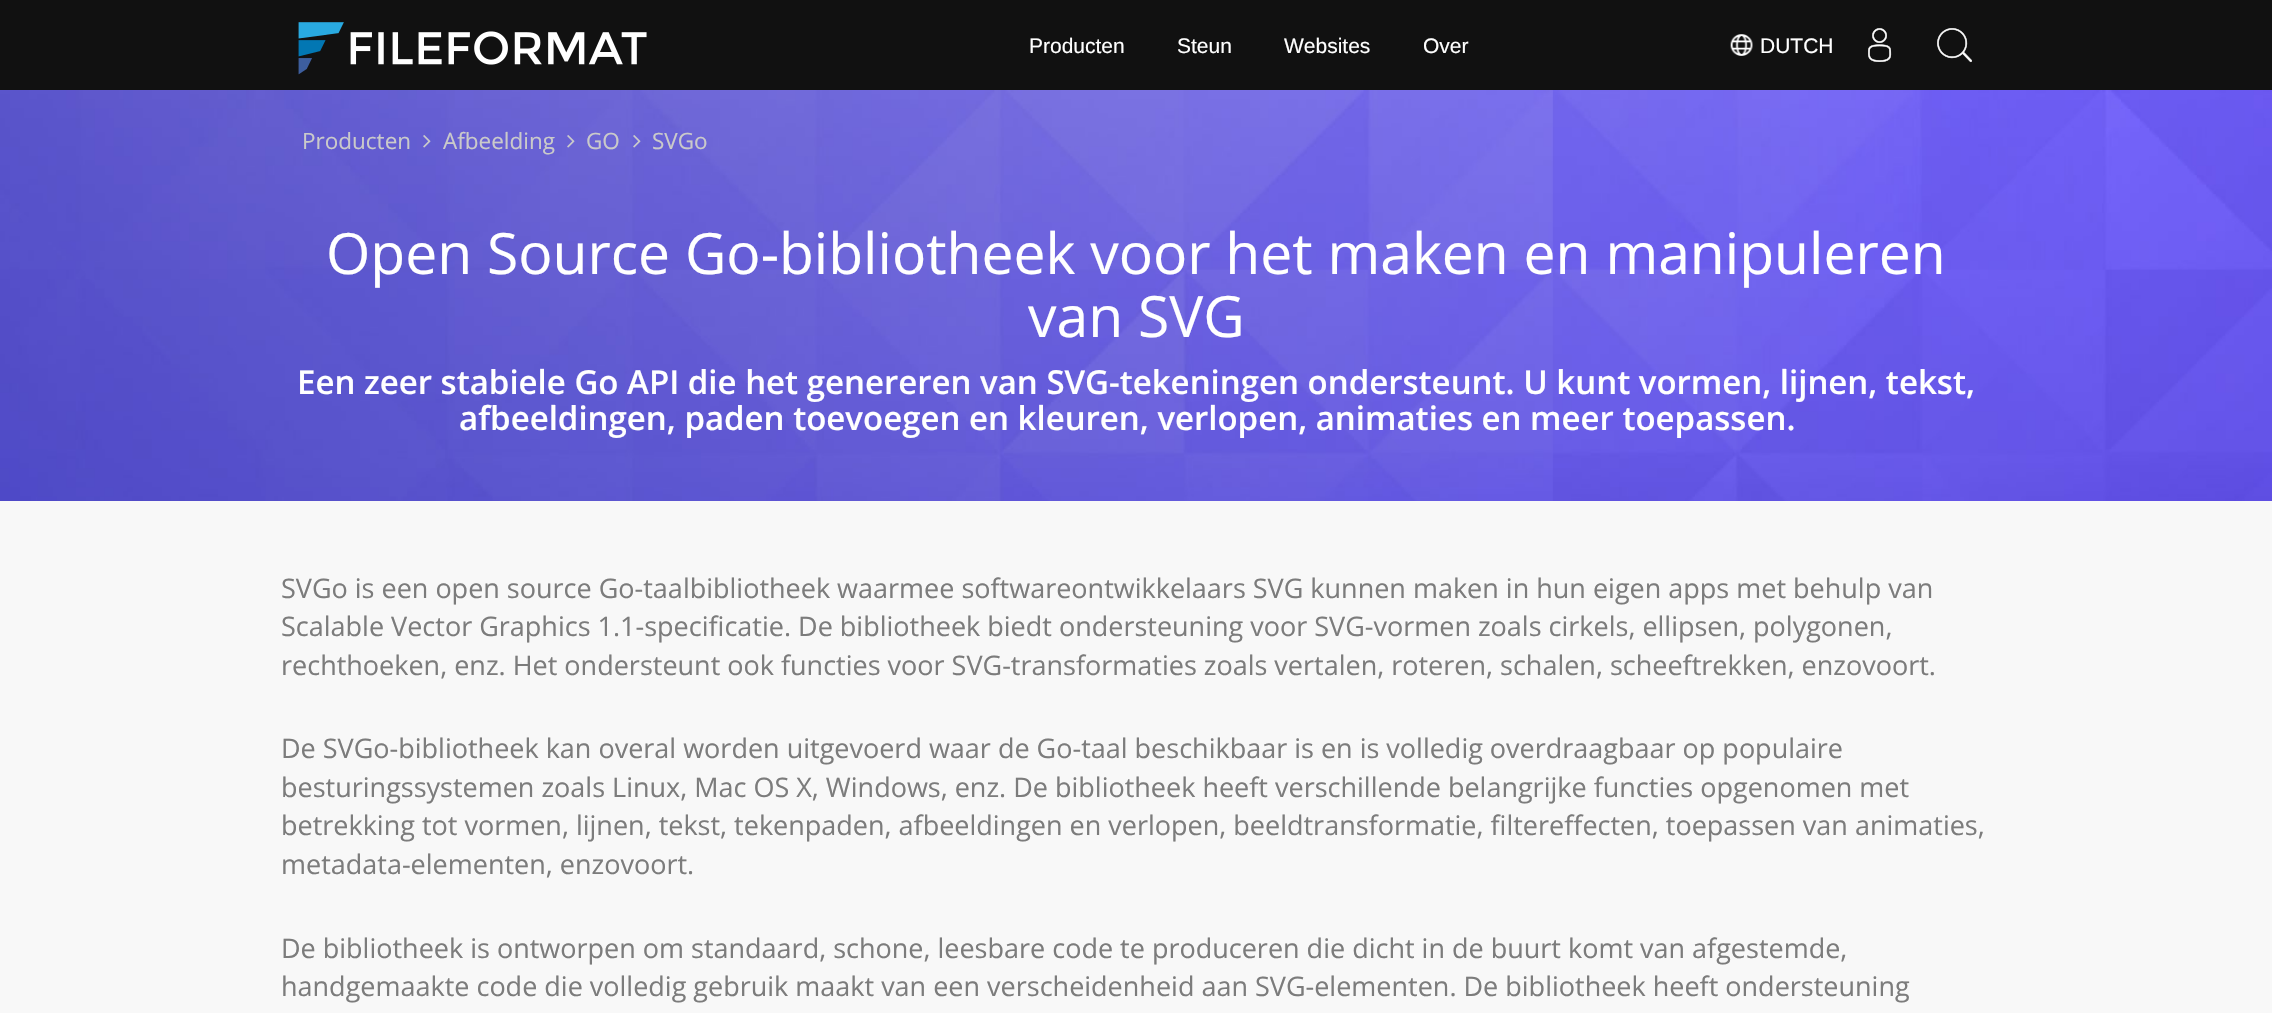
static SkFont makeFont(const char* family, int weight, float size, bool italic = false) {
  SkFontStyle style(weight, SkFontStyle::kNormal_Width,
    italic ? SkFontStyle::kItalic_Slant : SkFontStyle::kUpright_Slant);
  SkFont result(fontMgr->matchFamilyStyle(family, style), size);
  result.setSubpixel(true);
  return result;
}

static void text(SkCanvas* c, const char* s, float x, float y, const SkFont& font, SkColor color) {
  SkPaint ink(SkColor4f::FromColor(color));
  ink.setAntiAlias(true);
  c->drawString(s, x, y, font, ink);
}

static void box(SkCanvas* c, float l, float t, float r, float b, SkColor color) {
  SkPaint ink(SkColor4f::FromColor(color));
  ink.setAntiAlias(true);
  c->drawRect(SkRect::MakeLTRB(l, t, r, b), ink);
}

static void picture(SkCanvas* c, const char* path, float l, float t, float r, float b) {
  auto image = SkImages::DeferredFromEncodedData(SkData::MakeFromFileName(path));
  c->drawImageRect(image, SkRect::MakeLTRB(l, t, r, b), SkSamplingOptions());
}

void draw(SkCanvas* c) {
  SkPaint paint;
  paint.setAntiAlias(true);
  c->clear(0xffffffff);
  box(c, 0, 0, 2272, 90, 0xff111111);
  picture(c, "img_01.png", 298, 22, 647, 75);
  SkFont face1 = makeFont("Liberation Sans", 400, 21);
  text(c, "Producten", 1029, 53, face1, 0xffffffff);
  text(c, "Steun", 1177, 53, face1, 0xffffffff);
  text(c, "Websites", 1284, 53, face1, 0xffffffff);
  text(c, "Over", 1423, 53, face1, 0xffffffff);
  picture(c, "img_02.png", 1730, 34, 1753, 56);
  text(c, "DUTCH", 1760, 53, face1, 0xffffffff);
  picture(c, "img_03.png", 1868, 28, 1892, 62);
  picture(c, "img_04.png", 1937, 28, 1972, 63);
  picture(c, "img_08.png", 0, 90, 2272, 501);
  SkFont face2 = makeFont("Open Sans", 400, 22.5f);
  text(c, "Producten", 302, 149, face2, 0xffcacaca);
  picture(c, "img_05.png", 423, 135, 431, 148);
  text(c, "Afbeelding", 443, 149, face2, 0xffcacaca);
  picture(c, "img_06.png", 567, 135, 575, 148);
  text(c, "GO", 586, 149, face2, 0xffcacaca);
  picture(c, "img_07.png", 633, 135, 641, 148);
  text(c, "SVGo", 652, 149, face2, 0xffcacaca);
  SkFont face3 = makeFont("Open Sans", 400, 57);
  text(c, "Open Source Go-bibliotheek voor het maken en manipuleren", 326, 274, face3, 0xffffffff);
  text(c, "van SVG", 1028, 337, face3, 0xffffffff);
  SkFont face4 = makeFont("Open Sans", 600, 33);
  text(c, "Een zeer stabiele Go API die het genereren van SVG-tekeningen ondersteunt. U kunt vormen, lijnen, tekst,", 297, 394, face4, 0xffffffff);
  text(c, "afbeeldingen, paden toevoegen en kleuren, verlopen, animaties en meer toepassen.", 459, 430, face4, 0xffffffff);
  box(c, 0, 501, 2272, 1013, 0xfff8f8f8);
  SkFont face5 = makeFont("Open Sans", 400, 27);
  text(c, "SVGo is een open source Go-taalbibliotheek waarmee softwareontwikkelaars SVG kunnen maken in hun eigen apps met behulp van", 281, 598, face5, 0xff7c7c7c);
  text(c, "Scalable Vector Graphics 1.1-specificatie. De bibliotheek biedt ondersteuning voor SVG-vormen zoals cirkels, ellipsen, polygonen,", 281, 636, face5, 0xff7c7c7c);
  text(c, "rechthoeken, enz. Het ondersteunt ook functies voor SVG-transformaties zoals vertalen, roteren, schalen, scheeftrekken, enzovoort.", 281, 675, face5, 0xff7c7c7c);
  text(c, "De SVGo-bibliotheek kan overal worden uitgevoerd waar de Go-taal beschikbaar is en is volledig overdraagbaar op populaire", 281, 758, face5, 0xff7c7c7c);
  text(c, "besturingssystemen zoals Linux, Mac OS X, Windows, enz. De bibliotheek heeft verschillende belangrijke functies opgenomen met", 281, 797, face5, 0xff7c7c7c);
  text(c, "betrekking tot vormen, lijnen, tekst, tekenpaden, afbeeldingen en verlopen, beeldtransformatie, filtereffecten, toepassen van animaties,", 281, 835, face5, 0xff7c7c7c);
  text(c, "metadata-elementen, enzovoort.", 281, 874, face5, 0xff7c7c7c);
  text(c, "De bibliotheek is ontworpen om standaard, schone, leesbare code te produceren die dicht in de buurt komt van afgestemde,", 281, 958, face5, 0xff7c7c7c);
  text(c, "handgemaakte code die volledig gebruik maakt van een verscheidenheid aan SVG-elementen. De bibliotheek heeft ondersteuning", 281, 996, face5, 0xff7c7c7c);
}
